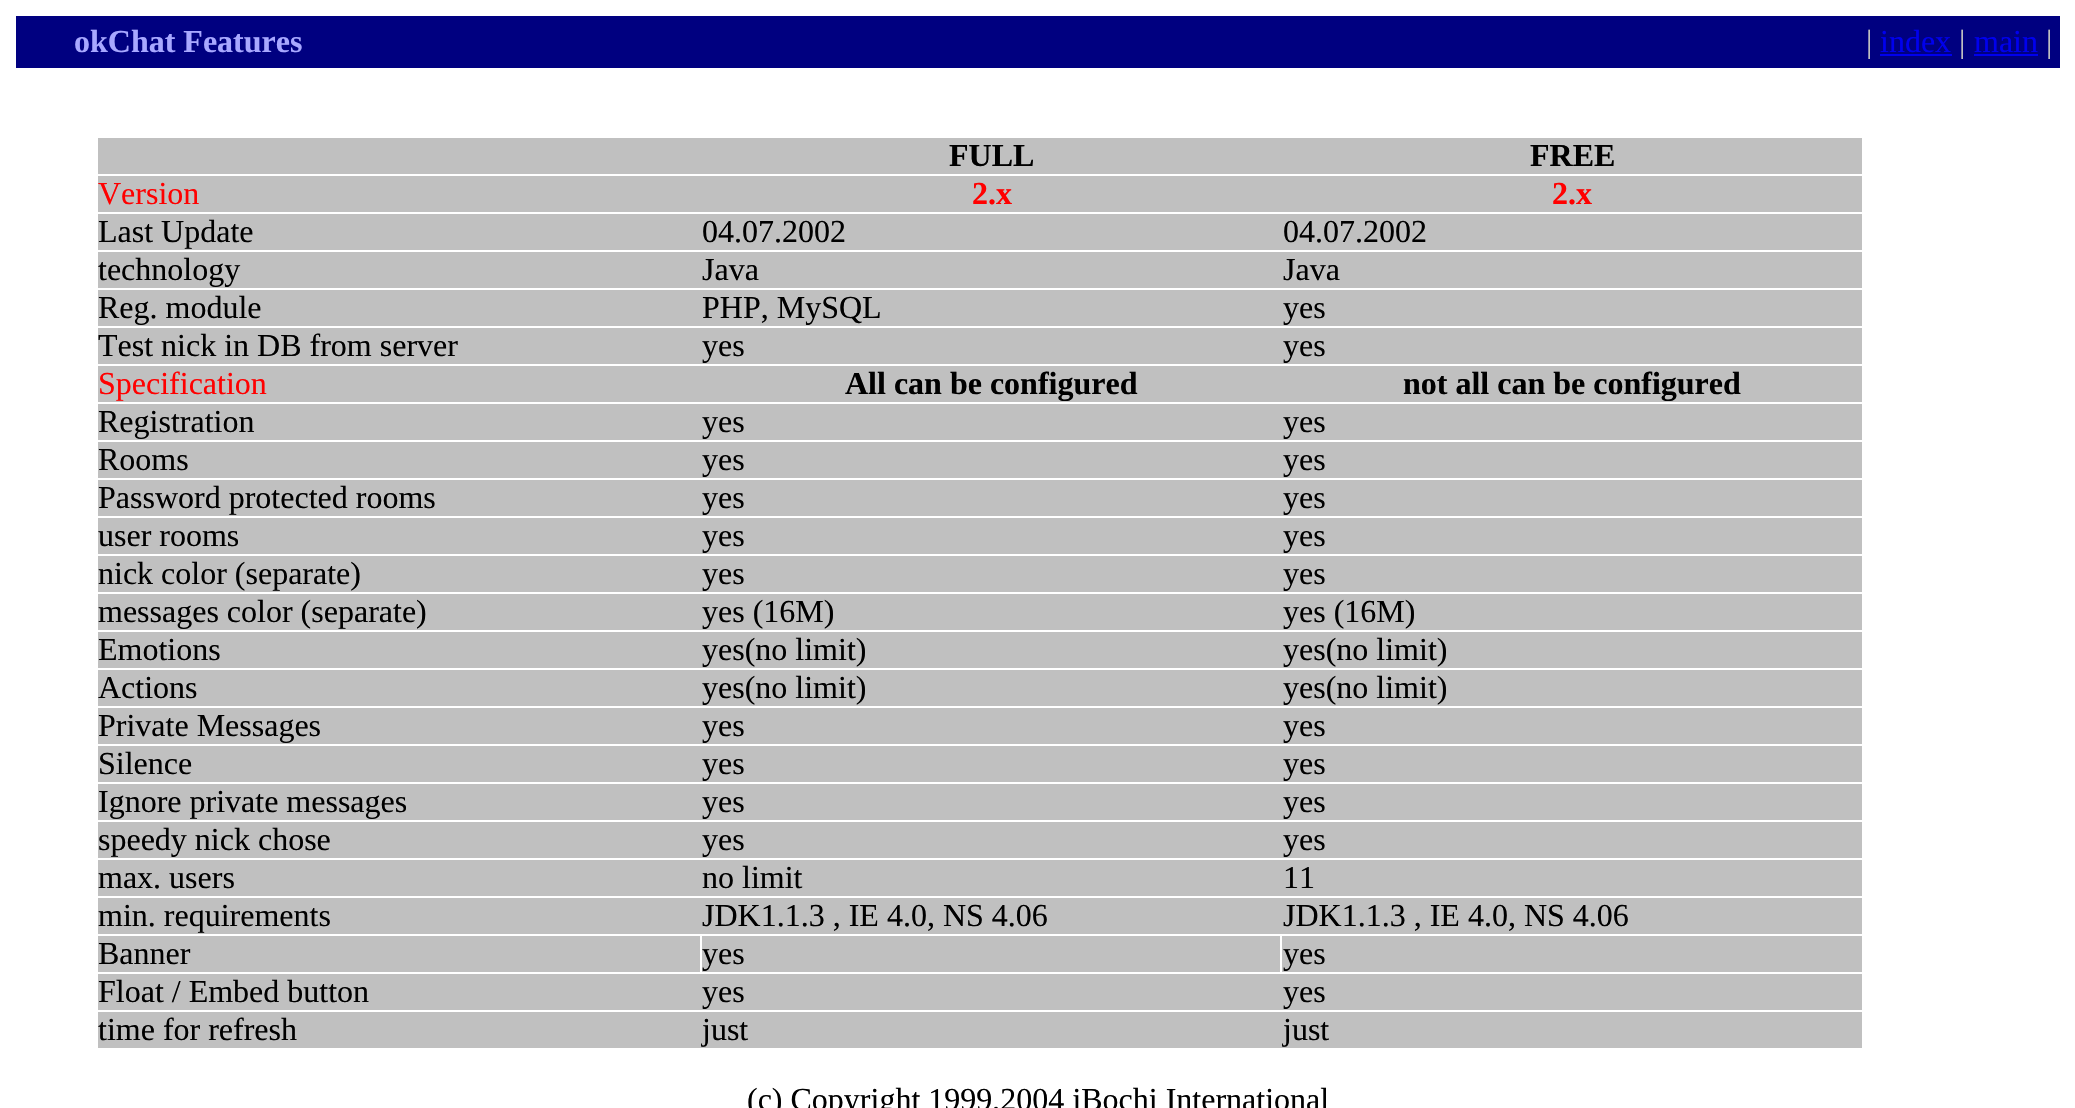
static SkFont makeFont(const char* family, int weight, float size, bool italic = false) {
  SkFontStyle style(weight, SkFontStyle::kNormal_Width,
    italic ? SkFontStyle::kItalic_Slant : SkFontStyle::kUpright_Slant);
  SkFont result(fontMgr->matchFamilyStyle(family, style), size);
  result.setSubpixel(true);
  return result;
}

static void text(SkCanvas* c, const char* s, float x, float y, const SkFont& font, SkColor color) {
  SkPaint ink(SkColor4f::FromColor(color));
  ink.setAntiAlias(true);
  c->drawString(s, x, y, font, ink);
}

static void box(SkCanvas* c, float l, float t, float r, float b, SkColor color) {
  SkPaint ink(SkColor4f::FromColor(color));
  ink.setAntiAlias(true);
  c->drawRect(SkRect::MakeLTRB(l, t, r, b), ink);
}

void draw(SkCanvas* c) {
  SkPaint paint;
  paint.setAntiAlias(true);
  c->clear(0xffffffff);
  box(c, 16, 16, 2060, 68, 0xff000080);
  SkFont face1 = makeFont("Liberation Serif", 700, 32);
  text(c, "okChat Features", 74, 52, face1, 0xffa8a8ff);
  SkFont face2 = makeFont("Liberation Serif", 400, 32);
  text(c, "|", 1866, 52, face2, 0xffc0c0c0);
  text(c, "index", 1880, 52, face2, 0xff0000ee);
  box(c, 1880, 54, 1952, 56, 0xff0000ee);
  text(c, "|", 1959, 52, face2, 0xffc0c0c0);
  text(c, "main", 1974, 52, face2, 0xff0000ee);
  box(c, 1974, 54, 2038, 56, 0xff0000ee);
  text(c, "|", 2046, 52, face2, 0xffc0c0c0);
  box(c, 98, 138, 1862, 174, 0xffc0c0c0);
  text(c, "FULL", 949, 166, face1, 0xff000000);
  text(c, "FREE", 1530, 166, face1, 0xff000000);
  box(c, 98, 176, 1862, 212, 0xffc0c0c0);
  text(c, "Version", 98, 204, face2, 0xffff0000);
  text(c, "2.x", 972, 204, face1, 0xffff0000);
  text(c, "2.x", 1552, 204, face1, 0xffff0000);
  box(c, 98, 214, 1862, 250, 0xffc0c0c0);
  text(c, "Last Update", 98, 242, face2, 0xff000000);
  text(c, "04.07.2002", 702, 242, face2, 0xff000000);
  text(c, "04.07.2002", 1283, 242, face2, 0xff000000);
  box(c, 98, 252, 1862, 288, 0xffc0c0c0);
  text(c, "technology", 98, 280, face2, 0xff000000);
  text(c, "Java", 702, 280, face2, 0xff000000);
  text(c, "Java", 1283, 280, face2, 0xff000000);
  box(c, 98, 290, 1862, 326, 0xffc0c0c0);
  text(c, "Reg. module", 98, 318, face2, 0xff000000);
  text(c, "PHP, MySQL", 702, 318, face2, 0xff000000);
  text(c, "yes", 1283, 318, face2, 0xff000000);
  box(c, 98, 328, 1862, 364, 0xffc0c0c0);
  text(c, "Test nick in DB from server", 98, 356, face2, 0xff000000);
  text(c, "yes", 702, 356, face2, 0xff000000);
  text(c, "yes", 1283, 356, face2, 0xff000000);
  box(c, 98, 366, 1862, 402, 0xffc0c0c0);
  text(c, "Specification", 98, 394, face2, 0xffff0000);
  text(c, "All can be configured", 845, 394, face1, 0xff000000);
  text(c, "not all can be configured", 1403, 394, face1, 0xff000000);
  box(c, 98, 404, 1862, 440, 0xffc0c0c0);
  text(c, "Registration", 98, 432, face2, 0xff000000);
  text(c, "yes", 702, 432, face2, 0xff000000);
  text(c, "yes", 1283, 432, face2, 0xff000000);
  box(c, 98, 442, 1862, 478, 0xffc0c0c0);
  text(c, "Rooms", 98, 470, face2, 0xff000000);
  text(c, "yes", 702, 470, face2, 0xff000000);
  text(c, "yes", 1283, 470, face2, 0xff000000);
  box(c, 98, 480, 1862, 516, 0xffc0c0c0);
  text(c, "Password protected rooms", 98, 508, face2, 0xff000000);
  text(c, "yes", 702, 508, face2, 0xff000000);
  text(c, "yes", 1283, 508, face2, 0xff000000);
  box(c, 98, 518, 1862, 554, 0xffc0c0c0);
  text(c, "user rooms", 98, 546, face2, 0xff000000);
  text(c, "yes", 702, 546, face2, 0xff000000);
  text(c, "yes", 1283, 546, face2, 0xff000000);
  box(c, 98, 556, 1862, 592, 0xffc0c0c0);
  text(c, "nick color (separate)", 98, 584, face2, 0xff000000);
  text(c, "yes", 702, 584, face2, 0xff000000);
  text(c, "yes", 1283, 584, face2, 0xff000000);
  box(c, 98, 594, 1862, 630, 0xffc0c0c0);
  text(c, "messages color (separate)", 98, 622, face2, 0xff000000);
  text(c, "yes (16M)", 702, 622, face2, 0xff000000);
  text(c, "yes (16M)", 1283, 622, face2, 0xff000000);
  box(c, 98, 632, 1862, 668, 0xffc0c0c0);
  text(c, "Emotions", 98, 660, face2, 0xff000000);
  text(c, "yes(no limit)", 702, 660, face2, 0xff000000);
  text(c, "yes(no limit)", 1283, 660, face2, 0xff000000);
  box(c, 98, 670, 1862, 706, 0xffc0c0c0);
  text(c, "Actions", 98, 698, face2, 0xff000000);
  text(c, "yes(no limit)", 702, 698, face2, 0xff000000);
  text(c, "yes(no limit)", 1283, 698, face2, 0xff000000);
  box(c, 98, 708, 1862, 744, 0xffc0c0c0);
  text(c, "Private Messages", 98, 736, face2, 0xff000000);
  text(c, "yes", 702, 736, face2, 0xff000000);
  text(c, "yes", 1283, 736, face2, 0xff000000);
  box(c, 98, 746, 1862, 782, 0xffc0c0c0);
  text(c, "Silence", 98, 774, face2, 0xff000000);
  text(c, "yes", 702, 774, face2, 0xff000000);
  text(c, "yes", 1283, 774, face2, 0xff000000);
  box(c, 98, 784, 1862, 820, 0xffc0c0c0);
  text(c, "Ignore private messages", 98, 812, face2, 0xff000000);
  text(c, "yes", 702, 812, face2, 0xff000000);
  text(c, "yes", 1283, 812, face2, 0xff000000);
  box(c, 98, 822, 1862, 858, 0xffc0c0c0);
  text(c, "speedy nick chose", 98, 850, face2, 0xff000000);
  text(c, "yes", 702, 850, face2, 0xff000000);
  text(c, "yes", 1283, 850, face2, 0xff000000);
  box(c, 98, 860, 1862, 896, 0xffc0c0c0);
  text(c, "max. users", 98, 888, face2, 0xff000000);
  text(c, "no limit", 702, 888, face2, 0xff000000);
  text(c, "11", 1283, 888, face2, 0xff000000);
  box(c, 98, 898, 1862, 934, 0xffc0c0c0);
  text(c, "min. requirements", 98, 926, face2, 0xff000000);
  text(c, "JDK1.1.3 , IE 4.0, NS 4.06", 702, 926, face2, 0xff000000);
  text(c, "JDK1.1.3 , IE 4.0, NS 4.06", 1283, 926, face2, 0xff000000);
  box(c, 98, 936, 700, 972, 0xffc0c0c0);
  text(c, "Banner", 98, 964, face2, 0xff000000);
  box(c, 702, 936, 1280, 972, 0xffc0c0c0);
  text(c, "yes", 702, 964, face2, 0xff000000);
  box(c, 1282, 936, 1862, 972, 0xffc0c0c0);
  text(c, "yes", 1283, 964, face2, 0xff000000);
  box(c, 98, 974, 1862, 1010, 0xffc0c0c0);
  text(c, "Float / Embed button", 98, 1002, face2, 0xff000000);
  text(c, "yes", 702, 1002, face2, 0xff000000);
  text(c, "yes", 1283, 1002, face2, 0xff000000);
  box(c, 98, 1012, 1862, 1048, 0xffc0c0c0);
  text(c, "time for refresh", 98, 1040, face2, 0xff000000);
  text(c, "just", 702, 1040, face2, 0xff000000);
  text(c, "just", 1283, 1040, face2, 0xff000000);
  text(c, "(c) Copyright 1999,2004 jBochi International", 747, 1110, face2, 0xff000000);
}
